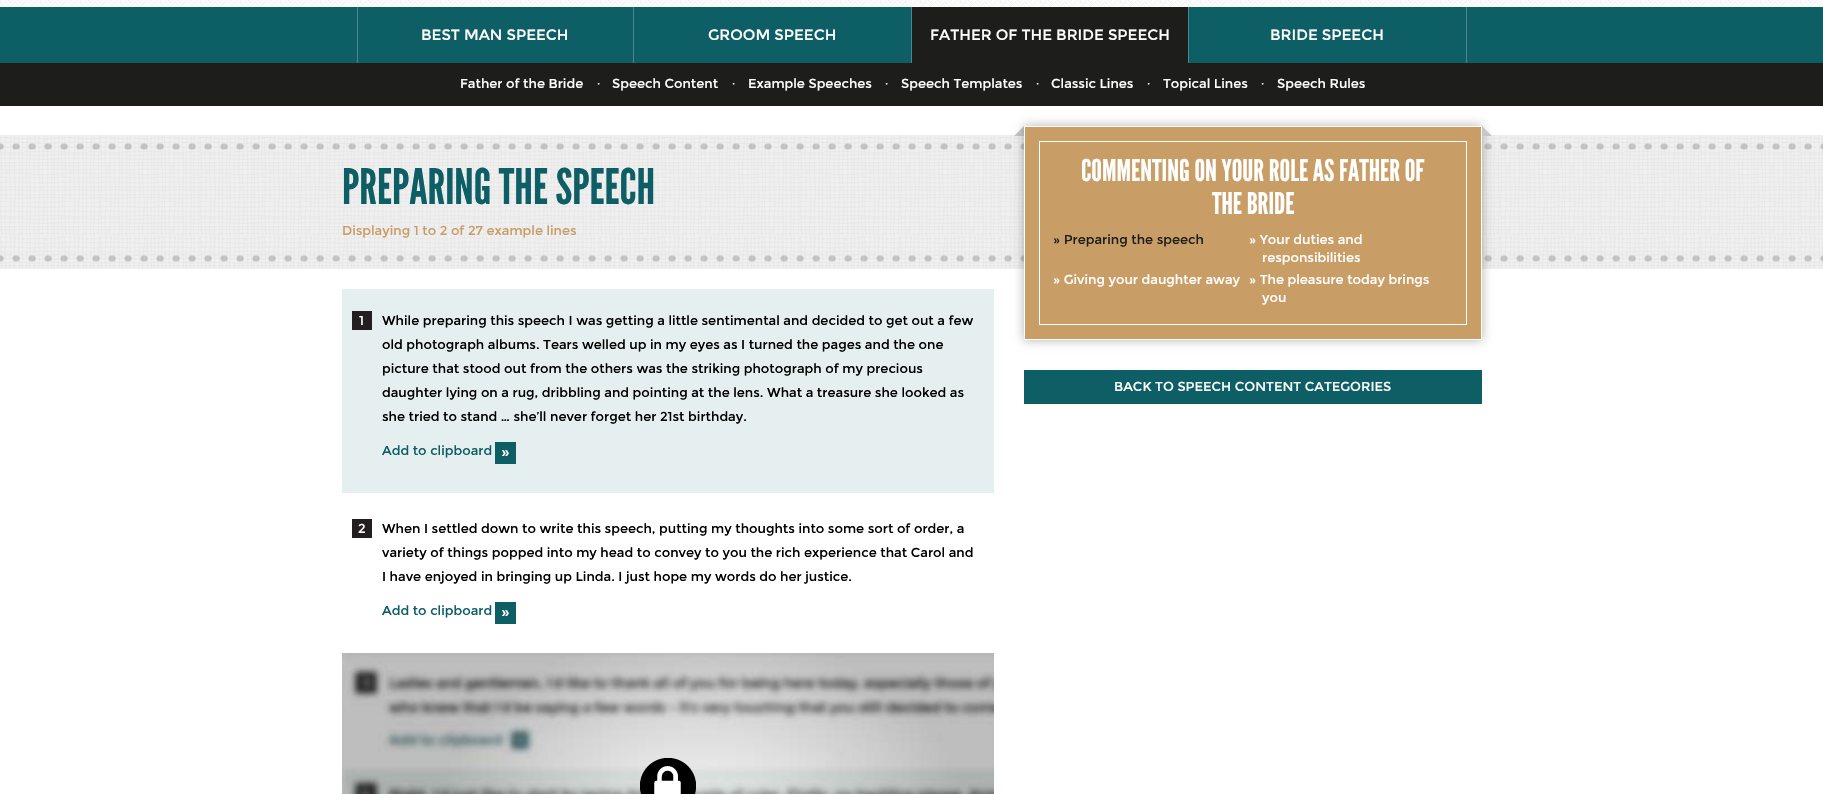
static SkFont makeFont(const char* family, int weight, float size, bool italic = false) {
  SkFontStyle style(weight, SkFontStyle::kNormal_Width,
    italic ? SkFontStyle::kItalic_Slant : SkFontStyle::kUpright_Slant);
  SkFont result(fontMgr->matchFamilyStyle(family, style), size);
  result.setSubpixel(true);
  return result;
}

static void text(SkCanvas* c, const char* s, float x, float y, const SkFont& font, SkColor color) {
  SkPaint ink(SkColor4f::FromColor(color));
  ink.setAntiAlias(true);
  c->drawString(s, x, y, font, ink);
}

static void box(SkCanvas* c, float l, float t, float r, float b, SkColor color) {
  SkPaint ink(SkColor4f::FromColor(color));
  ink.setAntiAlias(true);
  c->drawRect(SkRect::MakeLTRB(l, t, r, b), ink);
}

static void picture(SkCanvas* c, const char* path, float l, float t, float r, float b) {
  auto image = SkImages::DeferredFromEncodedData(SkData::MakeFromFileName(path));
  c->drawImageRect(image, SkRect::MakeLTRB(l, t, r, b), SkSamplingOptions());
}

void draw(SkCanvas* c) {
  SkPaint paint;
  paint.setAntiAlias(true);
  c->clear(0xffffffff);
  picture(c, "img_01.png", 0, 0, 1823, 7);
  box(c, 0, 7, 1823, 63, 0xff0e5e66);
  box(c, 633, 7, 634, 63, 0xff4a868c);
  box(c, 357, 7, 358, 63, 0xff4a868c);
  SkFont face1 = makeFont("Montserrat", 400, 15);
  text(c, "BEST MAN SPEECH", 421, 40, face1, 0xffffffff);
  box(c, 912, 7, 1188, 63, 0xff1d1d1b);
  box(c, 1188, 7, 1189, 63, 0xff4a868c);
  text(c, "FATHER OF THE BRIDE SPEECH", 930, 40, face1, 0xffffffff);
  box(c, 0, 63, 1823, 106, 0xff1d1d1b);
  SkFont face2 = makeFont("Montserrat", 400, 13);
  text(c, "Father of the Bride", 460, 88, face2, 0xffffffff);
  SkFont face3 = makeFont("Liberation Serif", 400, 13);
  text(c, "∙", 597, 88, face3, 0xffffffff);
  text(c, "Speech Content", 612, 88, face2, 0xffffffff);
  text(c, "∙", 732, 88, face3, 0xffffffff);
  text(c, "Example Speeches", 748, 88, face2, 0xffffffff);
  text(c, "∙", 885, 88, face3, 0xffffffff);
  text(c, "Speech Templates", 901, 88, face2, 0xffffffff);
  text(c, "∙", 1036, 88, face3, 0xffffffff);
  text(c, "Classic Lines", 1051, 88, face2, 0xffffffff);
  text(c, "∙", 1147, 88, face3, 0xffffffff);
  text(c, "Topical Lines", 1163, 88, face2, 0xffffffff);
  text(c, "∙", 1261, 88, face3, 0xffffffff);
  text(c, "Speech Rules", 1277, 88, face2, 0xffffffff);
  box(c, 911, 7, 912, 63, 0xff4a868c);
  text(c, "GROOM SPEECH", 708, 40, face1, 0xffffffff);
  box(c, 1466, 7, 1467, 63, 0xff4a868c);
  text(c, "BRIDE SPEECH", 1270, 40, face1, 0xffffffff);
  picture(c, "img_04.png", 0, 135, 1823, 269);
  paint.setColor(0xffc6c6c5);
  c->drawPath(SkPathBuilder().moveTo(1024, 126).lineTo(1024, 136).lineTo(1019, 131).close().detach(), paint);
  c->drawPath(SkPathBuilder().moveTo(1024, 136).lineTo(1014, 136).lineTo(1019, 131).close().detach(), paint);
  picture(c, "img_05.png", 0, 143, 1823, 150);
  picture(c, "img_06.png", 0, 255, 1823, 262);
  paint.setColor(0x4d000000);
  paint.setMaskFilter(SkMaskFilter::MakeBlur(kNormal_SkBlurStyle, 5));
  c->drawRect(SkRect::MakeLTRB(1024, 126, 1482, 340), paint);
  paint.setMaskFilter(nullptr);
  paint.setColor(0xffc6c6c5);
  c->drawPath(SkPathBuilder().moveTo(1492, 136).lineTo(1482, 136).lineTo(1487, 131).close().detach(), paint);
  c->drawPath(SkPathBuilder().moveTo(1482, 136).lineTo(1482, 126).lineTo(1487, 131).close().detach(), paint);
  paint.setColor(0xffc99d66);
  c->drawRect(SkRect::MakeLTRB(1024.5f, 126.5f, 1481.5f, 339.5f), paint);
  paint.setStyle(SkPaint::kStroke_Style);
  paint.setStrokeWidth(1);
  paint.setColor(0xffffffff);
  c->drawRect(SkRect::MakeLTRB(1024.5f, 126.5f, 1481.5f, 339.5f), paint);
  c->drawRect(SkRect::MakeLTRB(1039.5f, 141.5f, 1466.5f, 324.5f), paint);
  SkFont face4 = makeFont("League Gothic", 400, 30);
  text(c, "COMMENTING ON YOUR ROLE AS FATHER OF", 1081, 181, face4, 0xffffffff);
  text(c, "THE BRIDE", 1212, 214, face4, 0xffffffff);
  text(c, "» Preparing the speech", 1053, 244, face2, 0xff1d1d1b);
  text(c, "» Your duties and", 1249, 244, face2, 0xffffffff);
  text(c, "responsibilities", 1262, 262, face2, 0xffffffff);
  text(c, "» Giving your daughter away", 1053, 284, face2, 0xffffffff);
  text(c, "» The pleasure today brings", 1249, 284, face2, 0xffffffff);
  text(c, "you", 1262, 302, face2, 0xffffffff);
  box(c, 1024, 370, 1482, 404, 0xff0e5e66);
  text(c, "BACK TO SPEECH CONTENT CATEGORIES", 1114, 391, face2, 0xffffffff);
  box(c, 342, 289, 994, 493, 0xffe6efef);
  box(c, 352, 311, 372, 330, 0xff231f20);
  text(c, "1", 359, 325, face2, 0xffffffff);
  text(c, "While preparing this speech I was getting a little sentimental and decided to get out a few", 382, 325, face2, 0xff000000);
  text(c, "old photograph albums. Tears welled up in my eyes as I turned the pages and the one", 382, 349, face2, 0xff000000);
  text(c, "picture that stood out from the others was the striking photograph of my precious", 382, 373, face2, 0xff000000);
  text(c, "daughter lying on a rug, dribbling and pointing at the lens. What a treasure she looked as", 382, 397, face2, 0xff000000);
  text(c, "she tried to stand … she’ll never forget her 21st birthday.", 382, 421, face2, 0xff000000);
  text(c, "Add to clipboard", 382, 455, face2, 0xff0e5e66);
  box(c, 495, 442, 516, 464, 0xff0e5e66);
  SkFont face5 = makeFont("Montserrat", 400, 16);
  text(c, "»", 501, 457, face5, 0xffffffff);
  box(c, 352, 519, 372, 538, 0xff231f20);
  text(c, "2", 358, 533, face2, 0xffffffff);
  text(c, "When I settled down to write this speech, putting my thoughts into some sort of order, a", 382, 533, face2, 0xff000000);
  text(c, "variety of things popped into my head to convey to you the rich experience that Carol and", 382, 557, face2, 0xff000000);
  text(c, "I have enjoyed in bringing up Linda. I just hope my words do her justice.", 382, 581, face2, 0xff000000);
  text(c, "Add to clipboard", 382, 615, face2, 0xff0e5e66);
  box(c, 495, 602, 516, 624, 0xff0e5e66);
  text(c, "»", 501, 617, face5, 0xffffffff);
  picture(c, "img_02.png", 342, 653, 994, 794);
  picture(c, "img_03.png", 640, 758, 696, 794);
  SkFont face6 = makeFont("League Gothic", 400, 49);
  text(c, "PREPARING THE SPEECH", 342, 204, face6, 0xff0e5e66);
  text(c, "Displaying 1 to 2 of 27 example lines", 342, 235, face2, 0xffc99d66);
}
